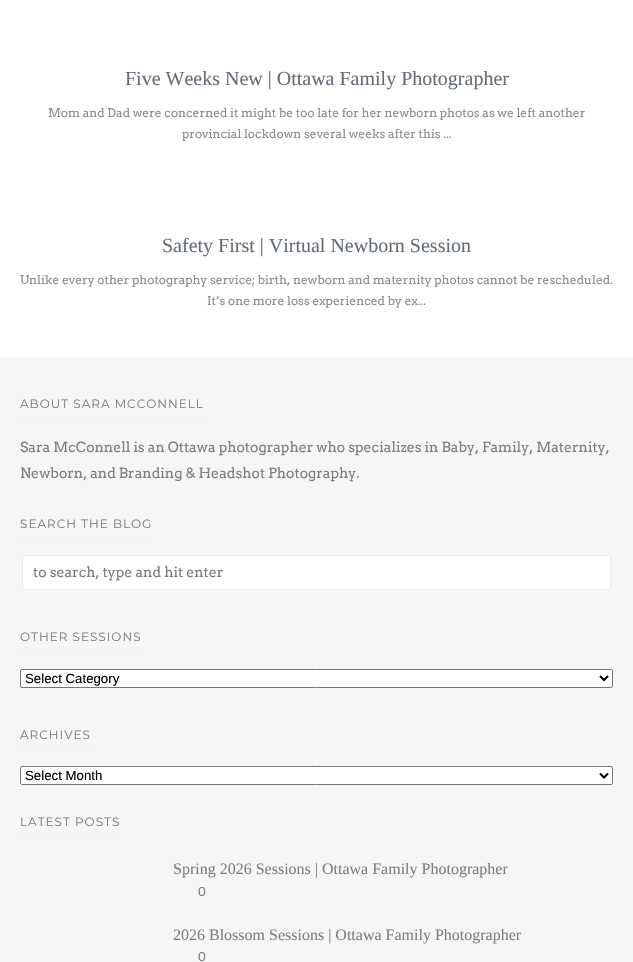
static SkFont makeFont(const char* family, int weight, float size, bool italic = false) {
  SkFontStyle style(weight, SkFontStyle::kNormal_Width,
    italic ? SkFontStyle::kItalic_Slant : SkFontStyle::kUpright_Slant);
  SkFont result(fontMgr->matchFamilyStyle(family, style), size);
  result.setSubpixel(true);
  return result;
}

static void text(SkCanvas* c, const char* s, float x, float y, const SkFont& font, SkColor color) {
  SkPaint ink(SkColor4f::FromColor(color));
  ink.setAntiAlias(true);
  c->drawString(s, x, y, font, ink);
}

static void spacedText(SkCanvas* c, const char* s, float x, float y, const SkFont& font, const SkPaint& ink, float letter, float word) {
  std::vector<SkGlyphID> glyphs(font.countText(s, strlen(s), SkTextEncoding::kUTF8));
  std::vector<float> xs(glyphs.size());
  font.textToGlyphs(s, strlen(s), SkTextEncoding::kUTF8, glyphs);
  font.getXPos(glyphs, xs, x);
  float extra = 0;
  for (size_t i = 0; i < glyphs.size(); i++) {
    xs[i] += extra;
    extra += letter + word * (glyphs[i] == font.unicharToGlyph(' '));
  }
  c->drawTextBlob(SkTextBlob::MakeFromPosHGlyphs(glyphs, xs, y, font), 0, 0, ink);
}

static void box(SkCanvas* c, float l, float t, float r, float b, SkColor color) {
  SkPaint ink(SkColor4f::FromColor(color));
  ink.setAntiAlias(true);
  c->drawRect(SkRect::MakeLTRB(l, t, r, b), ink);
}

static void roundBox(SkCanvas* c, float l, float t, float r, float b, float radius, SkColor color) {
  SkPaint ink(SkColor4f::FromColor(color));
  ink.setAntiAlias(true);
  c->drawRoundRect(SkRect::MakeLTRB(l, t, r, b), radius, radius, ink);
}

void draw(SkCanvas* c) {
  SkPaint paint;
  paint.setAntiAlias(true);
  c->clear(0xffffffff);
  SkFont face1 = makeFont("Liberation Serif", 400, 20);
  text(c, "Five Weeks New | Ottawa Family Photographer", 125, 85, face1, 0xff646d77);
  SkFont face2 = makeFont("Arvo", 400, 12);
  text(c, "Mom and Dad were concerned it might be too late for her newborn photos as we left another", 48, 117, face2, 0xff8d8d8d);
  text(c, "provincial lockdown several weeks after this ...", 182, 138, face2, 0xff8d8d8d);
  text(c, "Safety First | Virtual Newborn Session", 162, 252, face1, 0xff646d77);
  text(c, "Unlike every other photography service; birth, newborn and maternity photos cannot be rescheduled.", 20, 284, face2, 0xff8d8d8d);
  text(c, "It’s one more loss experienced by ex...", 207, 305, face2, 0xff8d8d8d);
  box(c, 0, 357, 633, 962, 0xfff5f6f7);
  box(c, 20, 417, 204, 418, 0xfff1f1f1);
  SkFont face3 = makeFont("Montserrat", 400, 12);
  paint.setColor(0xff7e7e7e);
  spacedText(c, "ABOUT SARA MCCONNELL", 20, 408, face3, paint, 1, 0);
  SkFont face4 = makeFont("Arvo", 400, 14);
  text(c, "Sara McConnell is an Ottawa photographer who specializes in Baby, Family, Maternity,", 20, 452, face4, 0xff7e7e7e);
  text(c, "Newborn, and Branding & Headshot Photography.", 20, 478, face4, 0xff7e7e7e);
  box(c, 20, 537, 152, 538, 0xfff1f1f1);
  spacedText(c, "SEARCH THE BLOG", 20, 528, face3, paint, 1, 0);
  roundBox(c, 22, 555, 611, 590, 3, 0xffffffff);
  paint.setStyle(SkPaint::kStroke_Style);
  paint.setStrokeWidth(1);
  paint.setColor(0x1a3c3c3c);
  c->drawRoundRect(SkRect::MakeLTRB(22.5f, 555.5f, 610.5f, 589.5f), 2.5f, 2.5f, paint);
  text(c, "to search, type and hit enter", 33, 577, face4, 0xff7e7e7e);
  box(c, 20, 651, 142, 652, 0xfff1f1f1);
  paint.setStyle(SkPaint::kFill_Style);
  paint.setColor(0xff7e7e7e);
  spacedText(c, "OTHER SESSIONS", 20, 641, face3, paint, 1, 0);
  paint.setColor(0xffffffff);
  c->drawRoundRect(SkRect::MakeLTRB(20.5f, 669.5f, 612.5f, 687.5f), 1.5f, 1.5f, paint);
  paint.setStyle(SkPaint::kStroke_Style);
  paint.setColor(0xff767676);
  c->drawRoundRect(SkRect::MakeLTRB(20.5f, 669.5f, 612.5f, 687.5f), 1.5f, 1.5f, paint);
  paint.setStrokeWidth(2);
  paint.setColor(0xff000000);
  c->drawPath(SkPathBuilder().moveTo(600, 676).lineTo(604, 680).lineTo(608, 676).detach(), paint);
  SkFont face5 = makeFont("Liberation Sans", 400, 13.25f);
  text(c, "Select Category", 25, 683, face5, 0xff000000);
  box(c, 20, 748, 91, 749, 0xfff1f1f1);
  paint.setStyle(SkPaint::kFill_Style);
  paint.setColor(0xff7e7e7e);
  spacedText(c, "ARCHIVES", 20, 739, face3, paint, 1, 0);
  paint.setColor(0xffffffff);
  c->drawRoundRect(SkRect::MakeLTRB(20.5f, 766.5f, 612.5f, 784.5f), 1.5f, 1.5f, paint);
  paint.setStyle(SkPaint::kStroke_Style);
  paint.setStrokeWidth(1);
  paint.setColor(0xff767676);
  c->drawRoundRect(SkRect::MakeLTRB(20.5f, 766.5f, 612.5f, 784.5f), 1.5f, 1.5f, paint);
  paint.setStrokeWidth(2);
  paint.setColor(0xff000000);
  c->drawPath(SkPathBuilder().moveTo(600, 773.5f).lineTo(604, 777.5f).lineTo(608, 773.5f).detach(), paint);
  text(c, "Select Month", 25, 780, face5, 0xff000000);
  box(c, 20, 835, 120, 836, 0xfff1f1f1);
  paint.setStyle(SkPaint::kFill_Style);
  paint.setColor(0xff7e7e7e);
  spacedText(c, "LATEST POSTS", 20, 826, face3, paint, 1, 0);
  SkFont face6 = makeFont("Liberation Serif", 400, 16);
  text(c, "Spring 2026 Sessions | Ottawa Family Photographer", 173, 874, face6, 0xff7e7e7e);
  text(c, "0", 198, 896, face2, 0xff7e7e7e);
  text(c, "2026 Blossom Sessions | Ottawa Family Photographer", 173, 940, face6, 0xff7e7e7e);
  text(c, "0", 198, 961, face2, 0xff7e7e7e);
}
